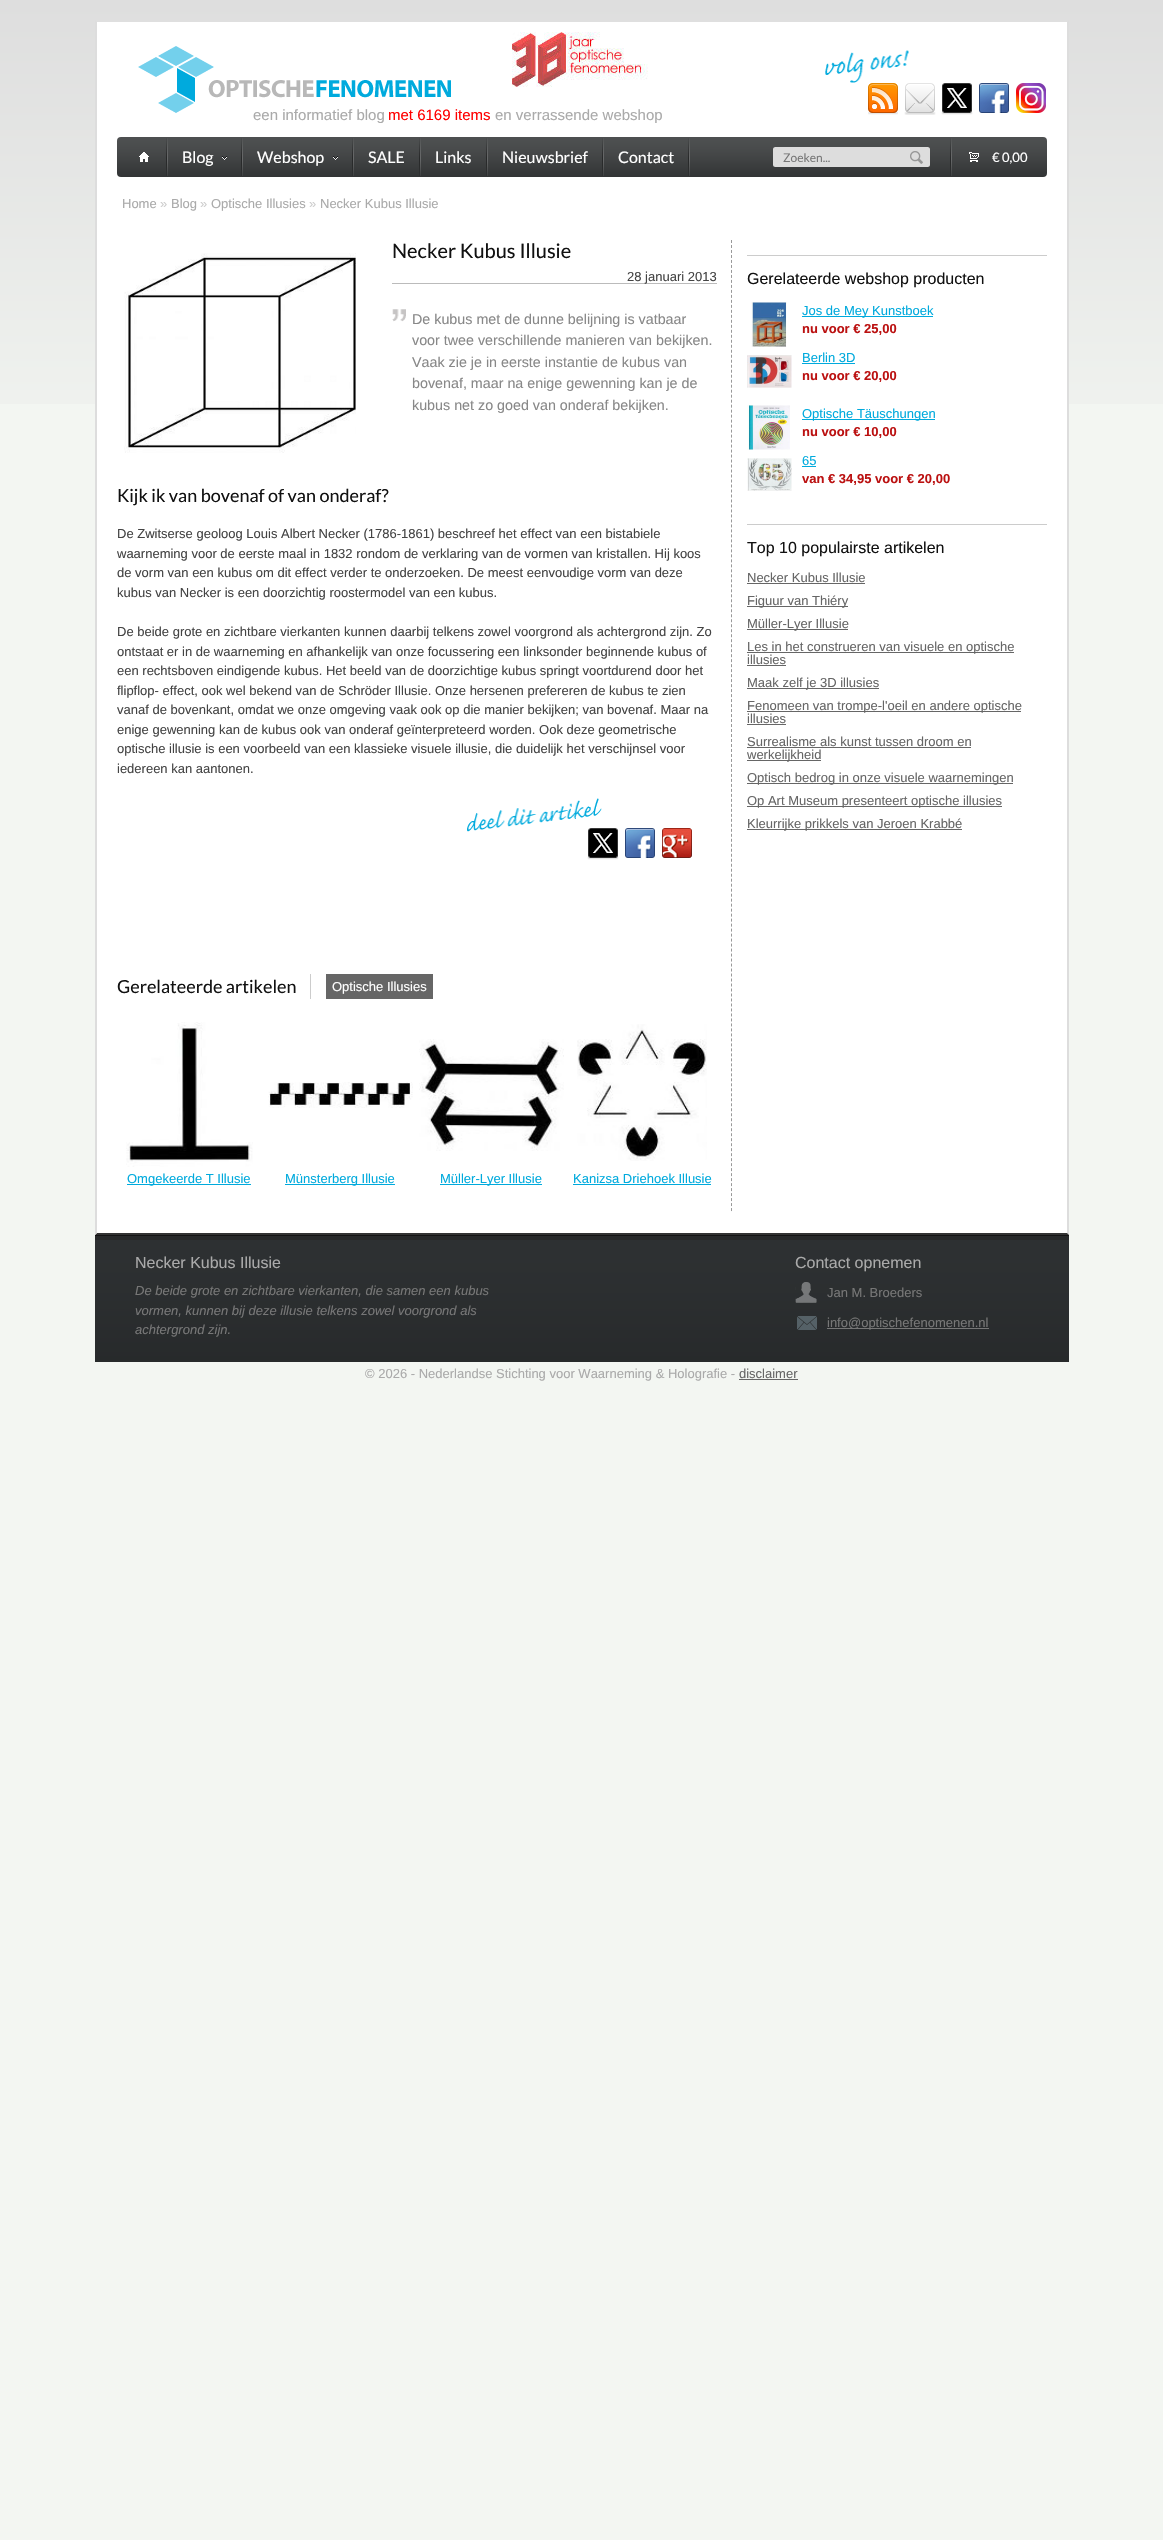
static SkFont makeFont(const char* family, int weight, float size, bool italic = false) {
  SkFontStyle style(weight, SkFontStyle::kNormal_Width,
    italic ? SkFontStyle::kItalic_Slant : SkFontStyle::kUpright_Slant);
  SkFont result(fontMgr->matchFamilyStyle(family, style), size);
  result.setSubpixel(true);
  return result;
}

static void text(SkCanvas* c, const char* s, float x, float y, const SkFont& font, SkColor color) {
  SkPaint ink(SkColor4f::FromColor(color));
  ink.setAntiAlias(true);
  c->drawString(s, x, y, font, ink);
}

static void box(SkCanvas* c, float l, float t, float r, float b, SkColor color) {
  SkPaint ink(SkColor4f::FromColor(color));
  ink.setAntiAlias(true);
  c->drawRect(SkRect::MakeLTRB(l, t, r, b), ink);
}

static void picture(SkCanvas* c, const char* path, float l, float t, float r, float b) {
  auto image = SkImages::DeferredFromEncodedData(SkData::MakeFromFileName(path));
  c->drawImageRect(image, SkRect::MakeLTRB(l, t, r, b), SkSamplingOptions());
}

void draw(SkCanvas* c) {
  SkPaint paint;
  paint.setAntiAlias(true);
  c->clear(0xfff3f6f2);
  picture(c, "img_01.png", 0, 0, 1163, 404);
  box(c, 95, 22, 1069, 1235, 0xffffffff);
  paint.setColor(0xffdddddd);
  c->drawPath(SkPathBuilder().moveTo(1069, 20).lineTo(1069, 1235).lineTo(1067, 1233).lineTo(1067, 22).close().detach(), paint);
  paint.setColor(0xff333333);
  c->drawPath(SkPathBuilder().moveTo(1069, 1235).lineTo(95, 1235).lineTo(97, 1233).lineTo(1067, 1233).close().detach(), paint);
  paint.setColor(0xffdddddd);
  c->drawPath(SkPathBuilder().moveTo(95, 1235).lineTo(95, 20).lineTo(97, 22).lineTo(97, 1233).close().detach(), paint);
  picture(c, "img_02.png", 138, 46, 451, 113);
  picture(c, "img_03.png", 512, 32, 648, 87);
  picture(c, "img_04.png", 825, 50, 909, 83);
  picture(c, "img_05.png", 868, 83, 898, 115);
  picture(c, "img_06.png", 904, 83, 936, 115);
  picture(c, "img_07.png", 941, 83, 973, 115);
  picture(c, "img_08.png", 979, 83, 1009, 113);
  picture(c, "img_09.png", 1016, 83, 1046, 113);
  SkFont face1 = makeFont("Liberation Sans", 400, 15);
  text(c, "een informatief blog", 253, 120, face1, 0xffaaaaaa);
  text(c, "met 6169 items", 388, 120, face1, 0xffff0000);
  text(c, "en verrassende webshop", 495, 120, face1, 0xffaaaaaa);
  picture(c, "img_10.png", 117, 137, 1047, 177);
  picture(c, "img_11.png", 166, 138, 168, 176);
  picture(c, "img_12.png", 122, 137, 166, 177);
  picture(c, "img_13.png", 139, 152, 149, 162);
  picture(c, "img_11.png", 241, 138, 243, 176);
  picture(c, "img_14.png", 168, 137, 241, 177);
  SkFont face2 = makeFont("Lato", 400, 16);
  text(c, "Blog", 182, 163, face2, 0xffffffff);
  picture(c, "img_15.png", 222, 156, 227, 160);
  picture(c, "img_11.png", 352, 138, 354, 176);
  picture(c, "img_16.png", 243, 137, 352, 177);
  text(c, "Webshop", 257, 163, face2, 0xffffffff);
  picture(c, "img_15.png", 333, 156, 338, 160);
  picture(c, "img_11.png", 419, 138, 421, 176);
  picture(c, "img_17.png", 354, 137, 419, 177);
  text(c, "SALE", 368, 163, face2, 0xffffffff);
  picture(c, "img_11.png", 486, 138, 488, 176);
  picture(c, "img_17.png", 421, 137, 486, 177);
  text(c, "Links", 435, 163, face2, 0xffffffff);
  picture(c, "img_11.png", 602, 138, 604, 176);
  picture(c, "img_18.png", 488, 137, 602, 177);
  text(c, "Nieuwsbrief", 502, 163, face2, 0xffffffff);
  picture(c, "img_11.png", 688, 138, 690, 176);
  picture(c, "img_19.png", 604, 137, 688, 177);
  text(c, "Contact", 618, 163, face2, 0xffffffff);
  picture(c, "img_20.png", 773, 147, 930, 167);
  SkFont face3 = makeFont("Lato", 400, 12);
  text(c, "Zoeken...", 783, 162, face3, 0xff777777);
  picture(c, "img_11.png", 950, 138, 952, 176);
  picture(c, "img_21.png", 952, 137, 1042, 177);
  picture(c, "img_22.png", 969, 152, 979, 162);
  SkFont face4 = makeFont("Lato", 400, 13);
  text(c, "€ 0,00", 992, 162, face4, 0xffffffff);
  SkFont face5 = makeFont("Liberation Sans", 400, 13);
  text(c, "Home", 122, 208, face5, 0xffaaaaaa);
  text(c, "»", 160, 208, face5, 0xffcccccc);
  text(c, "Blog", 171, 208, face5, 0xffaaaaaa);
  text(c, "»", 200, 208, face5, 0xffcccccc);
  text(c, "Optische Illusies", 211, 208, face5, 0xffaaaaaa);
  text(c, "»", 309, 208, face5, 0xffcccccc);
  text(c, "Necker Kubus Illusie", 320, 208, face5, 0xffaaaaaa);
  paint.setStyle(SkPaint::kStroke_Style);
  paint.setStrokeWidth(1);
  paint.setColor(0xff999999);
  paint.setPathEffect(SkDashPathEffect::Make({{3, 1.99f}}, 0));
  c->drawPath(SkPathBuilder().moveTo(731.5f, 240).lineTo(731.5f, 1212).detach(), paint);
  paint.setPathEffect(nullptr);
  picture(c, "img_23.png", 124, 253, 356, 453);
  SkFont face6 = makeFont("Lato", 400, 20);
  text(c, "Necker Kubus Illusie", 392, 258, face6, 0xff111111);
  box(c, 392, 283, 717, 284, 0xffbbbbbb);
  text(c, "28 januari 2013", 627, 281, face5, 0xff444444);
  picture(c, "img_24.png", 392, 309, 406, 322);
  SkFont face7 = makeFont("Liberation Sans", 400, 14.3f);
  text(c, "De kubus met de dunne belijning is vatbaar", 412, 324, face7, 0xff888888);
  text(c, "voor twee verschillende manieren van bekijken.", 412, 345, face7, 0xff888888);
  text(c, "Vaak zie je in eerste instantie de kubus van", 412, 367, face7, 0xff888888);
  text(c, "bovenaf, maar na enige gewenning kan je de", 412, 388, face7, 0xff888888);
  text(c, "kubus net zo goed van onderaf bekijken.", 412, 410, face7, 0xff888888);
  SkFont face8 = makeFont("Lato", 400, 18);
  text(c, "Kijk ik van bovenaf of van onderaf?", 117, 502, face8, 0xff111111);
  text(c, "De Zwitserse geoloog Louis Albert Necker (1786-1861) beschreef het effect van een bistabiele", 117, 538, face5, 0xff444444);
  text(c, "waarneming voor de eerste maal in 1832 rondom de verklaring van de vormen van kristallen. Hij koos", 117, 558, face5, 0xff444444);
  text(c, "de vorm van een kubus om dit effect verder te onderzoeken. De meest eenvoudige vorm van deze", 117, 577, face5, 0xff444444);
  text(c, "kubus van Necker is een doorzichtig roostermodel van een kubus.", 117, 597, face5, 0xff444444);
  text(c, "De beide grote en zichtbare vierkanten kunnen daarbij telkens zowel voorgrond als achtergrond zijn. Zo", 117, 636, face5, 0xff444444);
  text(c, "ontstaat er in de waarneming en afhankelijk van onze focussering een linksonder beginnende kubus of", 117, 656, face5, 0xff444444);
  text(c, "een rechtsboven eindigende kubus. Het beeld van de doorzichtige kubus springt voortdurend door het", 117, 675, face5, 0xff444444);
  text(c, "flipflop- effect, ook wel bekend van de Schröder Illusie. Onze hersenen prefereren de kubus te zien", 117, 695, face5, 0xff444444);
  text(c, "vanaf de bovenkant, omdat we onze omgeving vaak ook op die manier bekijken; van bovenaf. Maar na", 117, 714, face5, 0xff444444);
  text(c, "enige gewenning kan de kubus ook van onderaf geïnterpreteerd worden. Ook deze geometrische", 117, 734, face5, 0xff444444);
  text(c, "optische illusie is een voorbeeld van een klassieke visuele illusie, die duidelijk het verschijnsel voor", 117, 753, face5, 0xff444444);
  text(c, "iedereen kan aantonen.", 117, 773, face5, 0xff444444);
  picture(c, "img_25.png", 467, 798, 602, 832);
  picture(c, "img_07.png", 587, 828, 619, 860);
  picture(c, "img_08.png", 625, 828, 655, 858);
  picture(c, "img_26.png", 662, 828, 692, 858);
  box(c, 310, 974, 311, 999, 0xffcccccc);
  text(c, "Gerelateerde artikelen", 117, 993, face8, 0xff111111);
  box(c, 326, 974, 433, 999, 0xff666666);
  text(c, "Optische Illusies", 332, 991, face5, 0xffffffff);
  picture(c, "img_27.png", 126, 1022, 253, 1167);
  box(c, 127, 1184, 251, 1185, 0xff00aadd);
  text(c, "Omgekeerde T Illusie", 127, 1183, face5, 0xff00aadd);
  picture(c, "img_28.png", 268, 1082, 413, 1108);
  box(c, 285, 1184, 395, 1185, 0xff00aadd);
  text(c, "Münsterberg Illusie", 285, 1183, face5, 0xff00aadd);
  picture(c, "img_29.png", 419, 1039, 564, 1151);
  box(c, 440, 1184, 542, 1185, 0xff00aadd);
  text(c, "Müller-Lyer Illusie", 440, 1183, face5, 0xff00aadd);
  picture(c, "img_30.png", 577, 1024, 707, 1161);
  text(c, "Kanizsa Driehoek Illusie", 573, 1183, face5, 0xff00aadd);
  box(c, 573, 1184, 711, 1185, 0xff00aadd);
  box(c, 747, 255, 1047, 256, 0xffcccccc);
  SkFont face9 = makeFont("Liberation Sans", 400, 16);
  text(c, "Gerelateerde webshop producten", 747, 284, face9, 0xff111111);
  picture(c, "img_31.png", 751, 302, 787, 347);
  box(c, 802, 316, 933, 317, 0xff00aadd);
  text(c, "Jos de Mey Kunstboek", 802, 315, face5, 0xff00aadd);
  SkFont face10 = makeFont("Liberation Sans", 700, 13);
  text(c, "nu voor € 25,00", 802, 333, face10, 0xffbb1111);
  picture(c, "img_32.png", 747, 355, 792, 388);
  text(c, "Berlin 3D", 802, 362, face5, 0xff00aadd);
  box(c, 802, 363, 855, 364, 0xff00aadd);
  text(c, "nu voor € 20,00", 802, 380, face10, 0xffbb1111);
  picture(c, "img_33.png", 747, 405, 790, 450);
  box(c, 802, 419, 935, 420, 0xff00aadd);
  text(c, "Optische Täuschungen", 802, 418, face5, 0xff00aadd);
  text(c, "nu voor € 10,00", 802, 436, face10, 0xffbb1111);
  picture(c, "img_34.png", 747, 458, 792, 491);
  text(c, "65", 802, 465, face5, 0xff00aadd);
  box(c, 802, 466, 816, 467, 0xff00aadd);
  text(c, "van € 34,95 voor € 20,00", 802, 483, face10, 0xffbb1111);
  box(c, 747, 524, 1047, 525, 0xffcccccc);
  text(c, "Top 10 populairste artikelen", 747, 553, face9, 0xff111111);
  text(c, "Necker Kubus Illusie", 747, 582, face5, 0xff666666);
  box(c, 747, 583, 865, 584, 0xff666666);
  box(c, 747, 606, 848, 607, 0xff666666);
  text(c, "Figuur van Thiéry", 747, 605, face5, 0xff666666);
  box(c, 747, 629, 848, 630, 0xff666666);
  text(c, "Müller-Lyer Illusie", 747, 628, face5, 0xff666666);
  box(c, 747, 652, 1014, 653, 0xff666666);
  text(c, "Les in het construeren van visuele en optische", 747, 651, face5, 0xff666666);
  text(c, "illusies", 747, 664, face5, 0xff666666);
  box(c, 747, 665, 786, 666, 0xff666666);
  box(c, 747, 688, 879, 689, 0xff666666);
  text(c, "Maak zelf je 3D illusies", 747, 687, face5, 0xff666666);
  box(c, 747, 711, 1021, 712, 0xff666666);
  text(c, "Fenomeen van trompe-l'oeil en andere optische", 747, 710, face5, 0xff666666);
  text(c, "illusies", 747, 723, face5, 0xff666666);
  box(c, 747, 724, 786, 725, 0xff666666);
  text(c, "Surrealisme als kunst tussen droom en", 747, 746, face5, 0xff666666);
  box(c, 747, 747, 971, 748, 0xff666666);
  box(c, 747, 760, 821, 761, 0xff666666);
  text(c, "werkelijkheid", 747, 759, face5, 0xff666666);
  box(c, 747, 783, 1013, 784, 0xff666666);
  text(c, "Optisch bedrog in onze visuele waarnemingen", 747, 782, face5, 0xff666666);
  box(c, 747, 806, 1002, 807, 0xff666666);
  text(c, "Op Art Museum presenteert optische illusies", 747, 805, face5, 0xff666666);
  box(c, 747, 829, 962, 830, 0xff666666);
  text(c, "Kleurrijke prikkels van Jeroen Krabbé", 747, 828, face5, 0xff666666);
  picture(c, "img_35.png", 95, 1235, 1069, 1362);
  text(c, "Necker Kubus Illusie", 135, 1268, face9, 0xffaaaaaa);
  SkFont face11 = makeFont("Liberation Sans", 400, 13, true);
  text(c, "De beide grote en zichtbare vierkanten, die samen een kubus", 135, 1295, face11, 0xff777777);
  text(c, "vormen, kunnen bij deze illusie telkens zowel voorgrond als", 135, 1315, face11, 0xff777777);
  text(c, "achtergrond zijn.", 135, 1334, face11, 0xff777777);
  text(c, "Contact opnemen", 795, 1268, face9, 0xffaaaaaa);
  picture(c, "img_36.png", 795, 1282, 817, 1303);
  text(c, "Jan M. Broeders", 827, 1297, face5, 0xff777777);
  picture(c, "img_37.png", 797, 1316, 817, 1330);
  box(c, 827, 1328, 989, 1329, 0xff777777);
  text(c, "info@optischefenomenen.nl", 827, 1327, face5, 0xff777777);
  text(c, "© 2026 - Nederlandse Stichting voor Waarneming & Holografie -", 365, 1378, face5, 0xffaaaaaa);
  text(c, "disclaimer", 739, 1378, face5, 0xff666666);
  box(c, 739, 1379, 798, 1380, 0xff666666);
}
